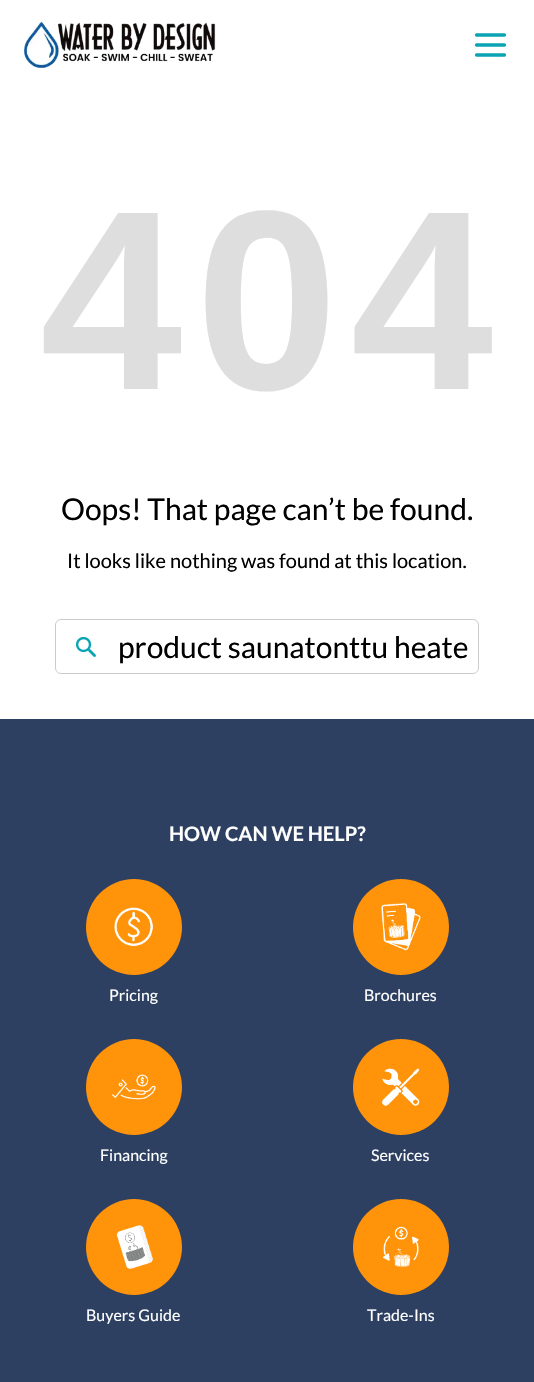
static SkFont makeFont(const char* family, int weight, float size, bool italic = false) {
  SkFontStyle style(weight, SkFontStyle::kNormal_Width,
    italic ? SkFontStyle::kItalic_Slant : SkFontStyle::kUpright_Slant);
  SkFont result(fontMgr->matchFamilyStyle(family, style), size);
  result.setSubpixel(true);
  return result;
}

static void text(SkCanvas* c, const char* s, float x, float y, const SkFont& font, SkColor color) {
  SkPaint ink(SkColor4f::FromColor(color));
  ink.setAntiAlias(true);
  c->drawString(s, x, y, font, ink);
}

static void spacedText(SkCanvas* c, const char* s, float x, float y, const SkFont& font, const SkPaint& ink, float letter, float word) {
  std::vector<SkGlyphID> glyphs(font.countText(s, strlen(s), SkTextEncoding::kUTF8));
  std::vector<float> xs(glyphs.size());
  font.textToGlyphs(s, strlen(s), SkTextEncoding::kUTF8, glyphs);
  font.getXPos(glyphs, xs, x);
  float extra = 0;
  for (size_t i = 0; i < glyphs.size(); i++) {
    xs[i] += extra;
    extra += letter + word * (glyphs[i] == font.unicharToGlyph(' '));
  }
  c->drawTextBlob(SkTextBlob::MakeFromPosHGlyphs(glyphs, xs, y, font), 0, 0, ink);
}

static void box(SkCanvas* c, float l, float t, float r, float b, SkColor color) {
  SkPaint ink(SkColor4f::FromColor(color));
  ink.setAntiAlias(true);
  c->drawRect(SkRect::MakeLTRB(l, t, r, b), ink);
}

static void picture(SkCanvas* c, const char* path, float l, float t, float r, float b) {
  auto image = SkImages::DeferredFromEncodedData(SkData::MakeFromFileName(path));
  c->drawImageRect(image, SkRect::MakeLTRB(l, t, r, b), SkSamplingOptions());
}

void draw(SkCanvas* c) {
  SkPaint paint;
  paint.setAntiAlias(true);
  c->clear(0xffffffff);
  picture(c, "img_01.png", 24, 21, 216, 68);
  paint.setStyle(SkPaint::kStroke_Style);
  paint.setStrokeWidth(3.3f);
  paint.setStrokeCap(SkPaint::kRound_Cap);
  paint.setStrokeJoin(SkPaint::kRound_Join);
  paint.setColor(0xff0aa4b5);
  c->drawPath(SkPathBuilder().moveTo(504.5f, 55).lineTo(476.5f, 55).moveTo(504.5f, 45).lineTo(476.5f, 45).moveTo(504.5f, 35).lineTo(476.5f, 35).detach(), paint);
  SkFont face1 = makeFont("Liberation Sans", 700, 256);
  paint.setStyle(SkPaint::kFill_Style);
  paint.setColor(0xffdedede);
  spacedText(c, "404", 40, 389, face1, paint, 13, 0);
  SkFont face2 = makeFont("Lato", 400, 30);
  text(c, "Oops! That page can’t be found.", 61, 520, face2, 0xff000000);
  SkFont face3 = makeFont("Lato", 400, 20);
  text(c, "It looks like nothing was found at this location.", 67, 568, face3, 0xff000000);
  paint.setStyle(SkPaint::kStroke_Style);
  paint.setStrokeWidth(1);
  paint.setStrokeCap(SkPaint::kButt_Cap);
  paint.setStrokeJoin(SkPaint::kMiter_Join);
  paint.setColor(0xffcccccc);
  c->drawRoundRect(SkRect::MakeLTRB(55.5f, 619.5f, 478.5f, 673.5f), 5.5f, 5.5f, paint);
  picture(c, "img_02.png", 76, 637, 96, 657);
  text(c, "product saunatonttu heate", 118, 658, face2, 0xff000000);
  box(c, 0, 719, 534, 1382, 0xff2d4062);
  SkFont face4 = makeFont("Lato", 700, 20);
  text(c, "HOW CAN WE HELP?", 169, 841, face4, 0xffffffff);
  paint.setStyle(SkPaint::kFill_Style);
  paint.setColor(0xffff9309);
  c->drawCircle(134, 927, 48, paint);
  picture(c, "img_03.png", 114, 907, 153, 947);
  SkFont face5 = makeFont("Lato", 400, 16);
  text(c, "Pricing", 109, 1001, face5, 0xffffffff);
  c->drawCircle(401, 927, 48, paint);
  picture(c, "img_04.png", 381, 903, 421, 951);
  text(c, "Brochures", 364, 1001, face5, 0xffffffff);
  c->drawCircle(134, 1087, 48, paint);
  picture(c, "img_05.png", 112, 1074, 156, 1100);
  text(c, "Financing", 100, 1161, face5, 0xffffffff);
  c->drawCircle(401, 1087, 48, paint);
  picture(c, "img_06.png", 381, 1068, 420, 1106);
  text(c, "Services", 371, 1161, face5, 0xffffffff);
  c->drawCircle(134, 1247, 48, paint);
  picture(c, "img_07.png", 116, 1225, 153, 1269);
  text(c, "Buyers Guide", 86, 1321, face5, 0xffffffff);
  c->drawCircle(401, 1247, 48, paint);
  picture(c, "img_08.png", 383, 1226, 419, 1267);
  text(c, "Trade-Ins", 367, 1321, face5, 0xffffffff);
}
